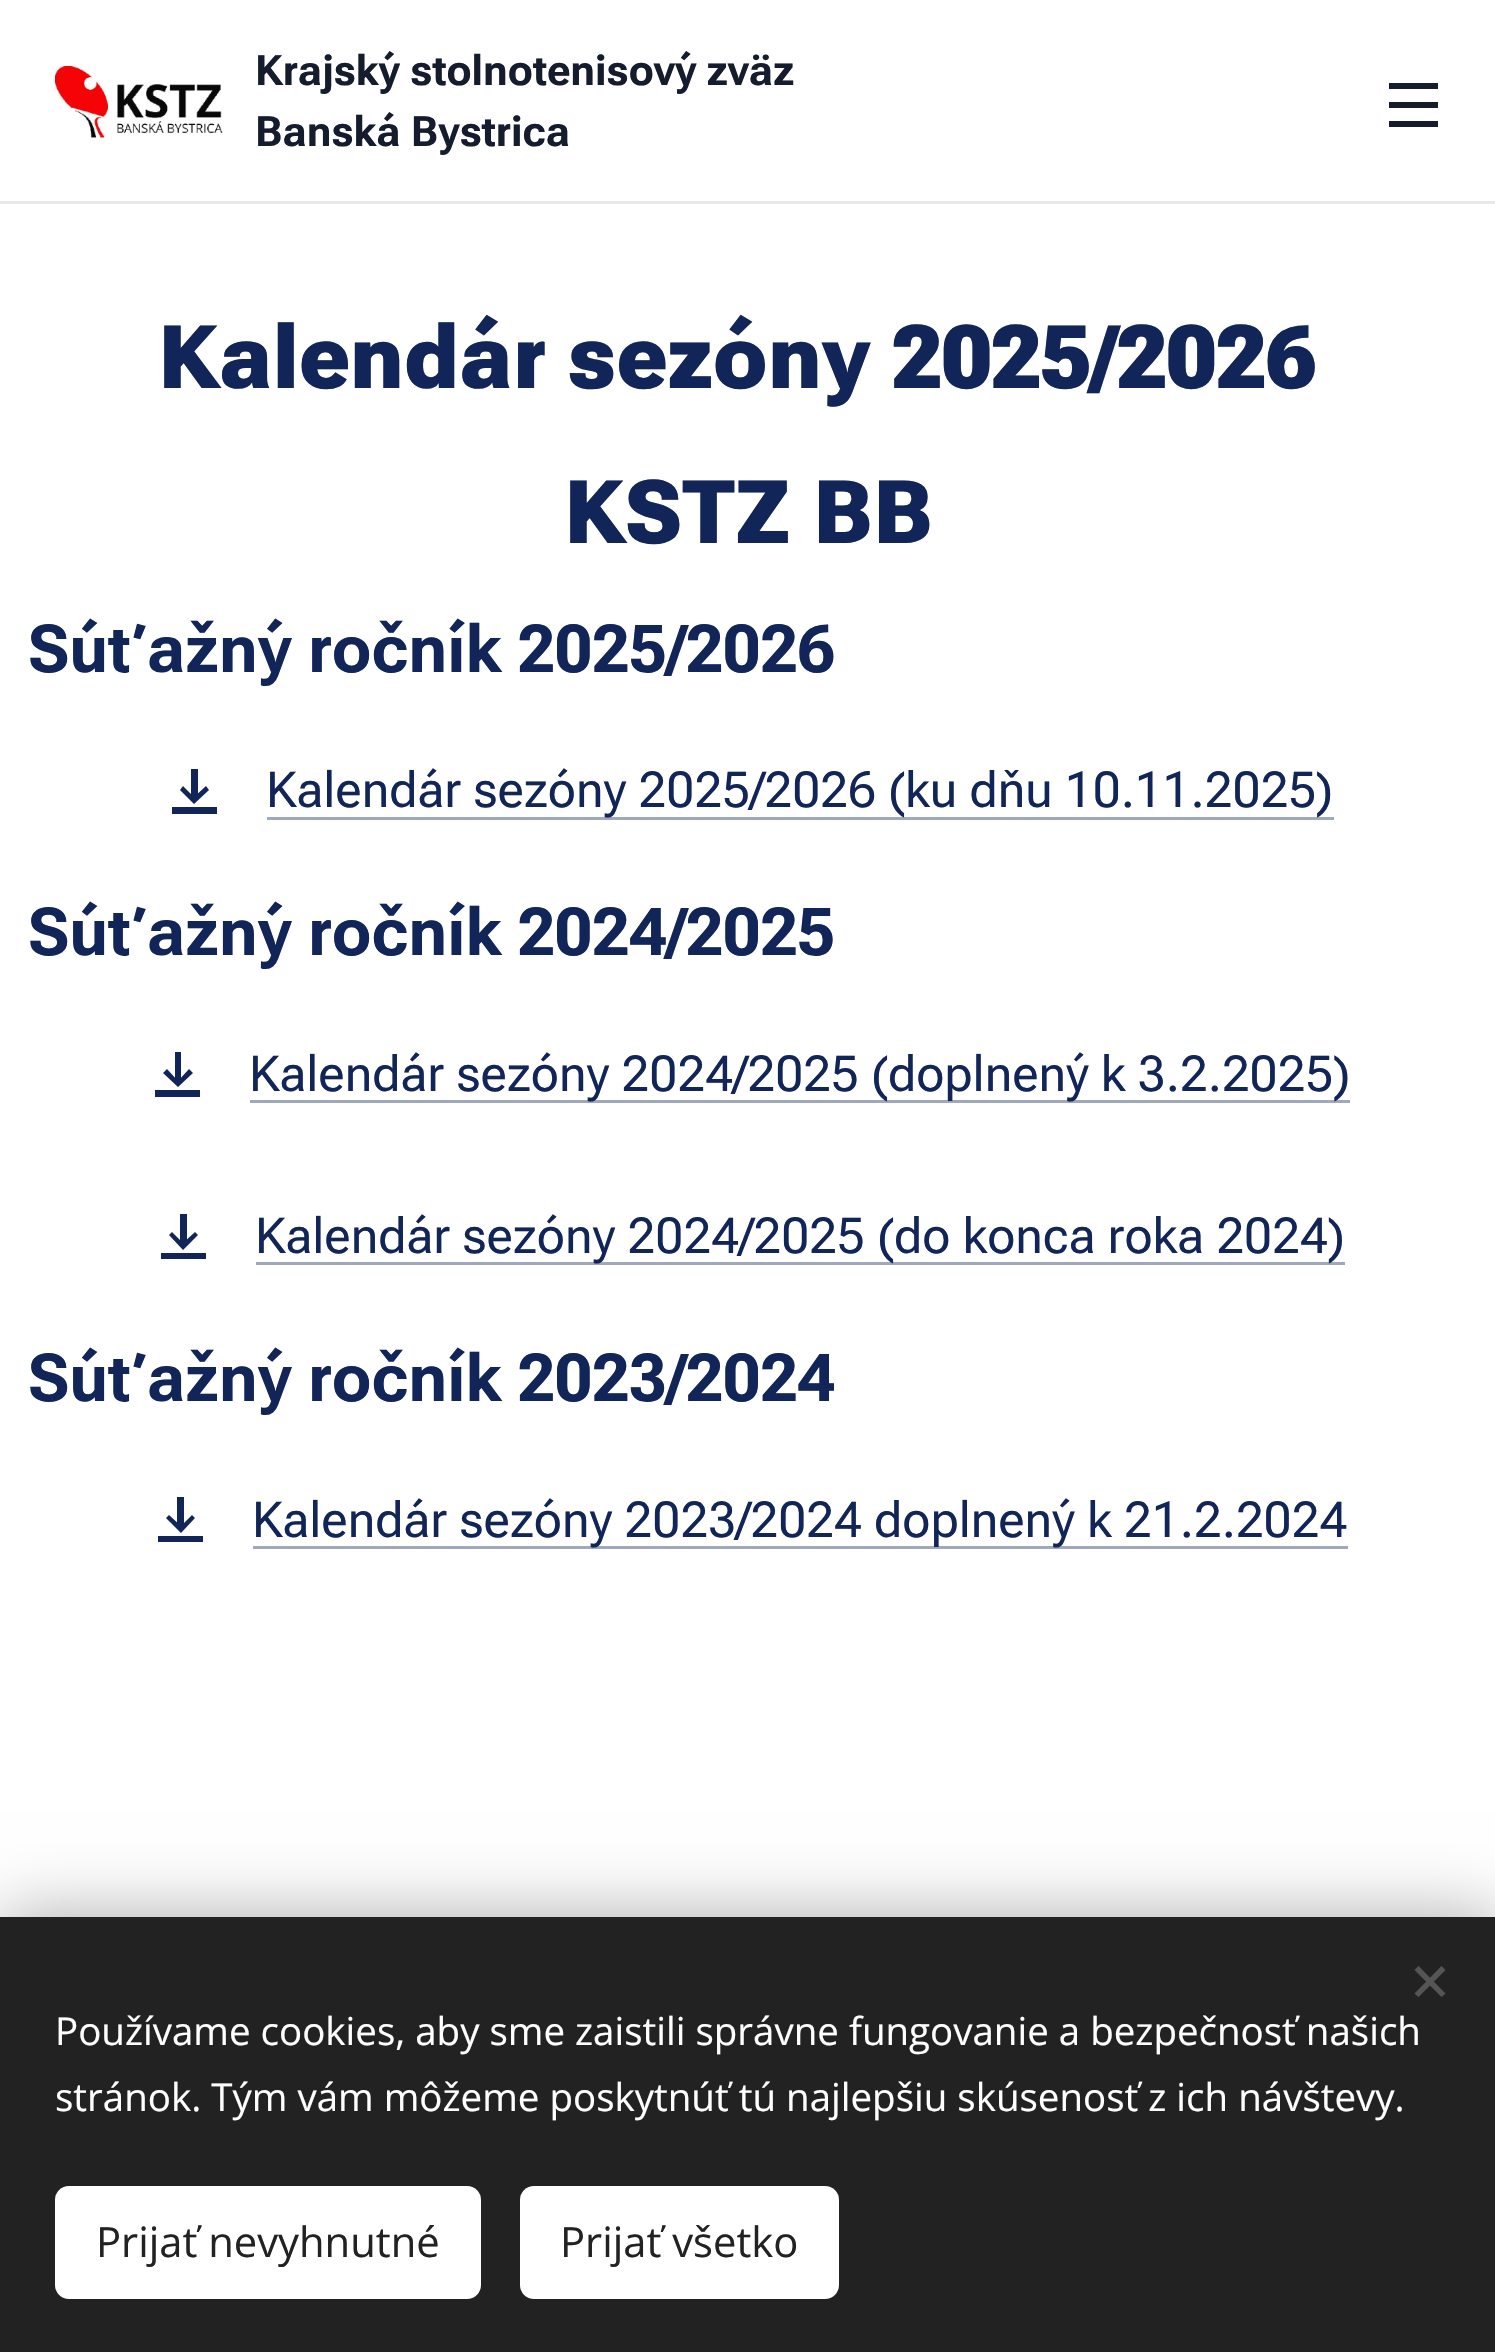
static SkFont makeFont(const char* family, int weight, float size, bool italic = false) {
  SkFontStyle style(weight, SkFontStyle::kNormal_Width,
    italic ? SkFontStyle::kItalic_Slant : SkFontStyle::kUpright_Slant);
  SkFont result(fontMgr->matchFamilyStyle(family, style), size);
  result.setSubpixel(true);
  return result;
}

static void text(SkCanvas* c, const char* s, float x, float y, const SkFont& font, SkColor color) {
  SkPaint ink(SkColor4f::FromColor(color));
  ink.setAntiAlias(true);
  c->drawString(s, x, y, font, ink);
}

static void box(SkCanvas* c, float l, float t, float r, float b, SkColor color) {
  SkPaint ink(SkColor4f::FromColor(color));
  ink.setAntiAlias(true);
  c->drawRect(SkRect::MakeLTRB(l, t, r, b), ink);
}

static void roundBox(SkCanvas* c, float l, float t, float r, float b, float radius, SkColor color) {
  SkPaint ink(SkColor4f::FromColor(color));
  ink.setAntiAlias(true);
  c->drawRoundRect(SkRect::MakeLTRB(l, t, r, b), radius, radius, ink);
}

static void picture(SkCanvas* c, const char* path, float l, float t, float r, float b) {
  auto image = SkImages::DeferredFromEncodedData(SkData::MakeFromFileName(path));
  c->drawImageRect(image, SkRect::MakeLTRB(l, t, r, b), SkSamplingOptions());
}

void draw(SkCanvas* c) {
  SkPaint paint;
  paint.setAntiAlias(true);
  c->clear(0xffffffff);
  picture(c, "img_01.png", 55, 66, 223, 138);
  SkFont face1 = makeFont("Roboto Flex", 700, 41.75f);
  text(c, "Krajský stolnotenisový zväz", 255, 85, face1, 0xff141c2d);
  text(c, "Banská Bystrica", 255, 146, face1, 0xff141c2d);
  box(c, 1389, 102, 1438, 108, 0xff141c2d);
  box(c, 1389, 83, 1438, 89, 0xff141c2d);
  box(c, 1389, 121, 1438, 127, 0xff141c2d);
  box(c, 0, 201, 1495, 204, 0xffe8e8e8);
  SkFont face2 = makeFont("Roboto Flex", 900, 88);
  text(c, "Kalendár sezóny 2025/2026", 158, 388, face2, 0xff122559);
  text(c, "KSTZ BB", 564, 543, face2, 0xff122559);
  SkFont face3 = makeFont("Roboto Flex", 700, 66);
  text(c, "Súťažný ročník 2025/2026", 28, 672, face3, 0xff122559);
  paint.setColor(0xff122559);
  c->drawPath(SkPathBuilder().moveTo(194, 804).lineTo(180, 790).lineTo(183, 786).lineTo(194, 797).lineTo(206, 786).lineTo(209, 790).close().moveTo(191, 769).lineTo(198, 769).lineTo(198, 798).lineTo(191, 798).close().moveTo(172, 807).lineTo(217, 807).lineTo(217, 814).lineTo(172, 814).close().detach(), paint);
  box(c, 267, 817, 1334, 820, 0xffa0a8bd);
  SkFont face4 = makeFont("Roboto Flex", 400, 49.5f);
  text(c, "Kalendár sezóny 2025/2026 (ku dňu 10.11.2025)", 266, 807, face4, 0xff122559);
  text(c, "Súťažný ročník 2024/2025", 28, 955, face3, 0xff122559);
  c->drawPath(SkPathBuilder().moveTo(178, 1087).lineTo(163, 1073).lineTo(167, 1069).lineTo(178, 1081).lineTo(189, 1069).lineTo(193, 1073).close().moveTo(175, 1052).lineTo(181, 1052).lineTo(181, 1081).lineTo(175, 1081).close().moveTo(155, 1090).lineTo(200, 1090).lineTo(200, 1097).lineTo(155, 1097).close().detach(), paint);
  box(c, 250, 1100, 1350, 1103, 0xffa0a8bd);
  text(c, "Kalendár sezóny 2024/2025 (doplnený k 3.2.2025)", 249, 1091, face4, 0xff122559);
  c->drawPath(SkPathBuilder().moveTo(183, 1250).lineTo(169, 1235).lineTo(172, 1232).lineTo(183, 1243).lineTo(195, 1232).lineTo(198, 1235).close().moveTo(180, 1214).lineTo(187, 1214).lineTo(187, 1243).lineTo(180, 1243).close().moveTo(161, 1253).lineTo(206, 1253).lineTo(206, 1259).lineTo(161, 1259).close().detach(), paint);
  box(c, 256, 1262, 1345, 1265, 0xffa0a8bd);
  text(c, "Kalendár sezóny 2024/2025 (do konca roka 2024)", 255, 1253, face4, 0xff122559);
  text(c, "Súťažný ročník 2023/2024", 28, 1401, face3, 0xff122559);
  c->drawPath(SkPathBuilder().moveTo(181, 1533).lineTo(166, 1518).lineTo(169, 1515).lineTo(181, 1526).lineTo(192, 1515).lineTo(195, 1518).close().moveTo(177, 1497).lineTo(184, 1497).lineTo(184, 1526).lineTo(177, 1526).close().moveTo(158, 1536).lineTo(203, 1536).lineTo(203, 1542).lineTo(158, 1542).close().detach(), paint);
  box(c, 253, 1546, 1348, 1549, 0xffa0a8bd);
  text(c, "Kalendár sezóny 2023/2024 doplnený k 21.2.2024", 252, 1537, face4, 0xff122559);
  paint.setColor(0x54000000);
  paint.setMaskFilter(SkMaskFilter::MakeBlur(kNormal_SkBlurStyle, 34.5f));
  c->drawRect(SkRect::MakeLTRB(0, 1917, 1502, 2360), paint);
  paint.setMaskFilter(nullptr);
  box(c, 0, 1917, 1495, 2352, 0xff222222);
  paint.setColor(0xff555555);
  c->drawPath(SkPathBuilder().moveTo(1414.5f, 1993.5f).lineTo(1441.5f, 1966).lineTo(1445.5f, 1970).lineTo(1418.5f, 1997).close().detach(), paint);
  c->drawPath(SkPathBuilder().moveTo(1418.5f, 1966).lineTo(1445.5f, 1993.5f).lineTo(1441.5f, 1997).lineTo(1414.5f, 1970).close().detach(), paint);
  SkFont face5 = makeFont("Open Sans", 400, 38.5f);
  text(c, "Používame cookies, aby sme zaistili správne fungovanie a bezpečnosť našich", 55, 2045, face5, 0xffffffff);
  text(c, "stránok. Tým vám môžeme poskytnúť tú najlepšiu skúsenosť z ich návštevy.", 55, 2111, face5, 0xffffffff);
  roundBox(c, 55, 2186, 481, 2299, 14, 0xffffffff);
  SkFont face6 = makeFont("Open Sans", 400, 41.75f);
  text(c, "Prijať nevyhnutné", 96, 2257, face6, 0xff222222);
  roundBox(c, 520, 2186, 839, 2299, 14, 0xffffffff);
  text(c, "Prijať všetko", 560, 2257, face6, 0xff222222);
}
